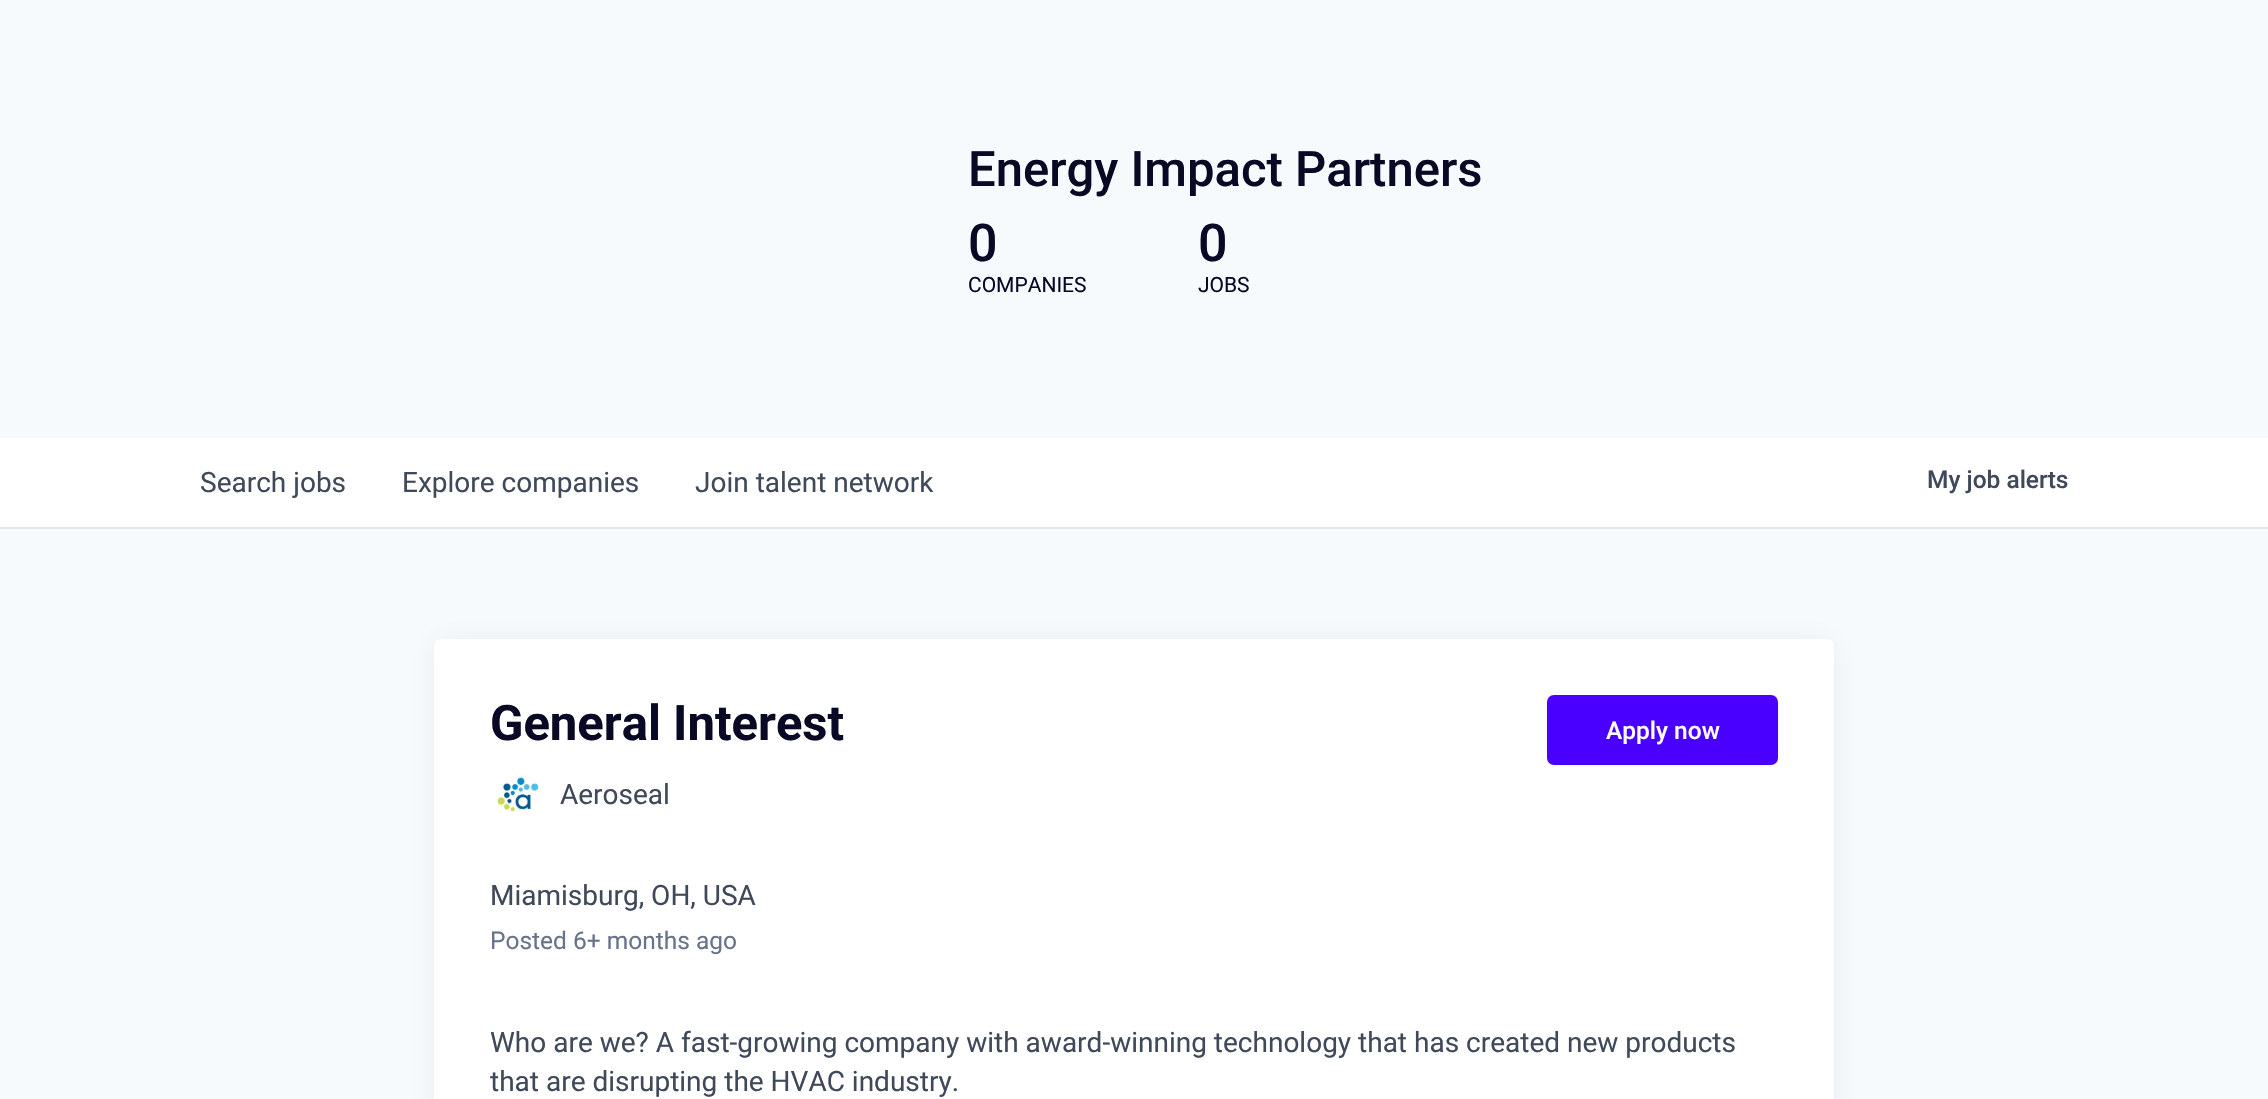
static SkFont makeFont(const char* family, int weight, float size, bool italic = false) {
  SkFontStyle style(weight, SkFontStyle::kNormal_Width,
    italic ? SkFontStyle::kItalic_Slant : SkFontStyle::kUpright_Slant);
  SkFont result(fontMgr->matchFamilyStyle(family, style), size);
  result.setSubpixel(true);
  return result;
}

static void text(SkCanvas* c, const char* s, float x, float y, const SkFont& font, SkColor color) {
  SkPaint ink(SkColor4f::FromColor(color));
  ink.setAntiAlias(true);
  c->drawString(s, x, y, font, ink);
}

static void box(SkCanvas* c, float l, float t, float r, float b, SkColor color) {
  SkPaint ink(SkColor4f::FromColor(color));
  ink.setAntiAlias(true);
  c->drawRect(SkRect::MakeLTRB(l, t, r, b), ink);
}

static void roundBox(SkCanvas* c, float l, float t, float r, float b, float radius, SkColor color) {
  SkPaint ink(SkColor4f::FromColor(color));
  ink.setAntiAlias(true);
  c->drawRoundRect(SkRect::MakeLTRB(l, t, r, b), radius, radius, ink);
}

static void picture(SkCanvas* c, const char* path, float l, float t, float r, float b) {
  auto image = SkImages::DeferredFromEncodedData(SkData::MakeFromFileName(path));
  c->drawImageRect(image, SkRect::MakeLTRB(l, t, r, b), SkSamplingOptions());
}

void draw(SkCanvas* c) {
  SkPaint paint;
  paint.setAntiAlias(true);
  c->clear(0xfff7fafc);
  SkFont face1 = makeFont("Roboto", 500, 49);
  text(c, "Energy Impact Partners", 968, 186, face1, 0xff090925);
  SkFont face2 = makeFont("Roboto", 500, 52);
  text(c, "0", 968, 261, face2, 0xff090925);
  SkFont face3 = makeFont("Roboto", 400, 21);
  text(c, "COMPANIES", 968, 292, face3, 0xff090925);
  text(c, "0", 1198, 261, face2, 0xff090925);
  text(c, "JOBS", 1198, 292, face3, 0xff090925);
  box(c, 0, 527, 2268, 529, 0xffe5e5e5);
  box(c, 0, 438, 2268, 527, 0xffffffff);
  SkFont face4 = makeFont("Roboto", 400, 28);
  text(c, "Search jobs", 200, 492, face4, 0xff3f495a);
  text(c, "Explore companies", 402, 492, face4, 0xff3f495a);
  text(c, "Join talent network", 695, 492, face4, 0xff3f495a);
  SkFont face5 = makeFont("Roboto", 500, 24.5f);
  text(c, "My job alerts", 1927, 488, face5, 0xff3f495a);
  paint.setColor(0x0f1b2432);
  paint.setMaskFilter(SkMaskFilter::MakeBlur(kNormal_SkBlurStyle, 14));
  c->drawRoundRect(SkRect::MakeLTRB(434, 641, 1834, 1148), 7, 7, paint);
  paint.setMaskFilter(nullptr);
  roundBox(c, 434, 639, 1834, 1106, 7, 0xffffffff);
  SkFont face6 = makeFont("Roboto", 700, 49);
  text(c, "General Interest", 490, 740, face6, 0xff090925);
  picture(c, "img_01.png", 496, 777, 539, 812);
  text(c, "Aeroseal", 560, 804, face4, 0xff3f495a);
  text(c, "Miamisburg, OH, USA", 490, 905, face4, 0xff3f495a);
  SkFont face7 = makeFont("Roboto", 400, 24.5f);
  text(c, "Posted 6+ months ago", 490, 949, face7, 0xff67738b);
  roundBox(c, 1547, 695, 1778, 765, 7, 0xff4900ff);
  text(c, "Apply now", 1606, 739, face5, 0xffffffff);
  text(c, "Who are we? A fast-growing company with award-winning technology that has created new products", 490, 1052, face4, 0xff3f495a);
  text(c, "that are disrupting the HVAC industry.", 490, 1091, face4, 0xff3f495a);
}
